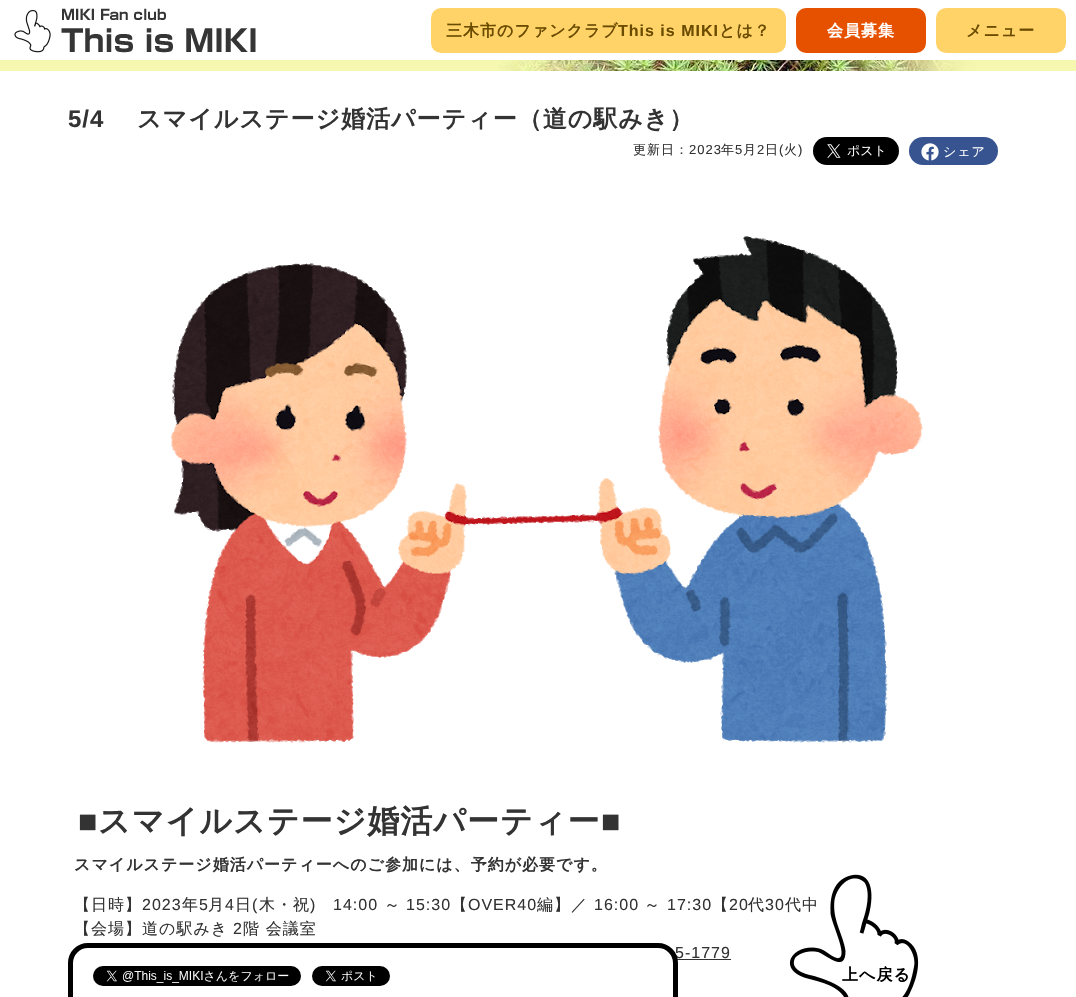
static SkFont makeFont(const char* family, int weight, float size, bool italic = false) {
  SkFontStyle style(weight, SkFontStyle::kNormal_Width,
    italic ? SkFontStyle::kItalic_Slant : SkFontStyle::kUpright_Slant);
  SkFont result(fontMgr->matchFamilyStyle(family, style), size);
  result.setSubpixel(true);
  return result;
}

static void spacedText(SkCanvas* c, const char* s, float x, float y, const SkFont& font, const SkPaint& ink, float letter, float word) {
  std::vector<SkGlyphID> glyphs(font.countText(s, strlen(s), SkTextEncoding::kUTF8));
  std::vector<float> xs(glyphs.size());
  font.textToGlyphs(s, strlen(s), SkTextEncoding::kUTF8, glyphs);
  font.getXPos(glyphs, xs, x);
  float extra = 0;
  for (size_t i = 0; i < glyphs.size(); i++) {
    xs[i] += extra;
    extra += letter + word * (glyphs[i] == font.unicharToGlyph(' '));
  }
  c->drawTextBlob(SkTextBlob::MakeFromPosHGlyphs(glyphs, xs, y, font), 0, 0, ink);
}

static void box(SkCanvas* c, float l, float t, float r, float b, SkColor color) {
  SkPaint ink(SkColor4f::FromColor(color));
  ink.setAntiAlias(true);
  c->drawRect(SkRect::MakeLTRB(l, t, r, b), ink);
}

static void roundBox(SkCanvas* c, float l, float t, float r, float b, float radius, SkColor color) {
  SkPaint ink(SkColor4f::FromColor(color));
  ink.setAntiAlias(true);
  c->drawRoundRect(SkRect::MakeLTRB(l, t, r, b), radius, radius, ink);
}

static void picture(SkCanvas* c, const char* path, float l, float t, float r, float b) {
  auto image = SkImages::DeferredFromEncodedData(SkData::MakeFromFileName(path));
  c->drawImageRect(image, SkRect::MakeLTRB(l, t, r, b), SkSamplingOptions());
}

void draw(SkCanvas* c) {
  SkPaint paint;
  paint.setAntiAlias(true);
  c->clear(0xffffffff);
  picture(c, "img_01.png", 14, 8, 256, 53);
  roundBox(c, 431, 8, 786, 53, 10, 0xffffd368);
  SkFont face1 = makeFont("WenQuanYi Zen Hei", 700, 16);
  paint.setColor(0xff6a4b00);
  spacedText(c, "三木市のファンクラブ", 446, 36, face1, paint, 1, 0);
  SkFont face2 = makeFont("Liberation Sans", 700, 16);
  spacedText(c, "This is MIKI", 618, 36, face2, paint, 1, 0);
  spacedText(c, "とは？", 719, 36, face1, paint, 1, 0);
  roundBox(c, 796, 8, 926, 53, 10, 0xffe65100);
  paint.setColor(0xffffffff);
  spacedText(c, "会員募集", 827, 36, face1, paint, 1, 0);
  roundBox(c, 936, 8, 1066, 53, 10, 0xffffd368);
  paint.setColor(0xff6a4b00);
  spacedText(c, "メニュー", 966, 36, face1, paint, 1, 0);
  box(c, 0, 60, 1076, 71, 0xfff7f8af);
  picture(c, "img_02.png", 498, 60, 978, 71);
  SkFont face3 = makeFont("Liberation Sans", 700, 24);
  paint.setColor(0xff333333);
  spacedText(c, "5/4", 68, 127, face3, paint, 1, 0);
  SkFont face4 = makeFont("WenQuanYi Zen Hei", 700, 24);
  spacedText(c, "スマイルステージ婚活パーティー（道の駅みき）", 137, 127, face4, paint, 1, 0);
  SkFont face5 = makeFont("WenQuanYi Zen Hei", 500, 13);
  spacedText(c, "更新日：", 633, 154, face5, paint, 1, 0);
  SkFont face6 = makeFont("Liberation Sans", 400, 13);
  spacedText(c, "2023", 689, 154, face6, paint, 1, 0);
  spacedText(c, "年", 721, 154, face5, paint, 1, 0);
  spacedText(c, "5", 735, 154, face6, paint, 1, 0);
  spacedText(c, "月", 743, 154, face5, paint, 1, 0);
  spacedText(c, "2", 757, 154, face6, paint, 1, 0);
  spacedText(c, "日", 765, 154, face5, paint, 1, 0);
  spacedText(c, "(", 779, 154, face6, paint, 1, 0);
  spacedText(c, "火", 784, 154, face5, paint, 1, 0);
  spacedText(c, ")", 798, 154, face6, paint, 1, 0);
  picture(c, "img_03.png", 813, 137, 899, 165);
  roundBox(c, 909, 137, 998, 165, 14, 0xff375490);
  picture(c, "img_04.png", 921, 143, 939, 161);
  paint.setColor(0xffffffff);
  spacedText(c, "シェア", 943, 156, face5, paint, 1, 0);
  picture(c, "img_05.png", 171, 236, 923, 743);
  SkFont face7 = makeFont("Liberation Sans", 700, 32);
  paint.setColor(0xff333333);
  spacedText(c, "■", 78, 832, face7, paint, 1, 0);
  SkFont face8 = makeFont("WenQuanYi Zen Hei", 700, 32);
  spacedText(c, "スマイルステージ婚活パーティー", 98, 832, face8, paint, 1, 0);
  spacedText(c, "■", 601, 832, face7, paint, 1, 0);
  spacedText(c, "スマイルステージ婚活パーティーへのご参加には、予約が必要です。", 74, 870, face1, paint, 1, 0);
  SkFont face9 = makeFont("WenQuanYi Zen Hei", 500, 16);
  spacedText(c, "【日時】", 74, 910, face9, paint, 1, 0);
  SkFont face10 = makeFont("Liberation Sans", 400, 16);
  spacedText(c, "2023", 142, 910, face10, paint, 1, 0);
  spacedText(c, "年", 182, 910, face9, paint, 1, 0);
  spacedText(c, "5", 199, 910, face10, paint, 1, 0);
  spacedText(c, "月", 208, 910, face9, paint, 1, 0);
  spacedText(c, "4", 225, 910, face10, paint, 1, 0);
  spacedText(c, "日", 235, 910, face9, paint, 1, 0);
  spacedText(c, "(", 252, 910, face10, paint, 1, 0);
  spacedText(c, "木・祝", 259, 910, face9, paint, 1, 0);
  spacedText(c, ")", 310, 910, face10, paint, 1, 0);
  spacedText(c, "14:00", 333, 910, face10, paint, 1, 0);
  spacedText(c, "～", 384, 910, face9, paint, 1, 0);
  spacedText(c, "15:30", 406, 910, face10, paint, 1, 0);
  spacedText(c, "【", 451, 910, face9, paint, 1, 0);
  spacedText(c, "OVER40", 468, 910, face10, paint, 1, 0);
  spacedText(c, "編】／", 537, 910, face9, paint, 1, 0);
  spacedText(c, "16:00", 594, 910, face10, paint, 1, 0);
  spacedText(c, "～", 644, 910, face9, paint, 1, 0);
  spacedText(c, "17:30", 667, 910, face10, paint, 1, 0);
  spacedText(c, "【", 712, 910, face9, paint, 1, 0);
  spacedText(c, "20", 729, 910, face10, paint, 1, 0);
  spacedText(c, "代", 748, 910, face9, paint, 1, 0);
  spacedText(c, "30", 765, 910, face10, paint, 1, 0);
  spacedText(c, "代中", 785, 910, face9, paint, 1, 0);
  spacedText(c, "【会場】道の駅みき", 74, 934, face9, paint, 1, 0);
  spacedText(c, "2", 233, 934, face10, paint, 1, 0);
  spacedText(c, "階 会議室", 243, 934, face9, paint, 1, 0);
  spacedText(c, "5-1779", 675, 958, face10, paint, 1, 0);
  box(c, 677, 959, 731, 960, 0xff333333);
  paint.setColor(0xffffffff);
  c->drawRoundRect(SkRect::MakeLTRB(70.5f, 945.5f, 675.5f, 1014.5f), 17.5f, 17.5f, paint);
  paint.setStyle(SkPaint::kStroke_Style);
  paint.setStrokeWidth(5);
  paint.setColor(0xff000000);
  c->drawRoundRect(SkRect::MakeLTRB(70.5f, 945.5f, 675.5f, 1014.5f), 17.5f, 17.5f, paint);
  picture(c, "img_06.png", 93, 966, 301, 986);
  picture(c, "img_07.png", 312, 966, 390, 986);
  picture(c, "img_08.png", 789, 874, 919, 997);
  paint.setStyle(SkPaint::kFill_Style);
  spacedText(c, "上へ戻る", 842, 980, face1, paint, 1, 0);
}
